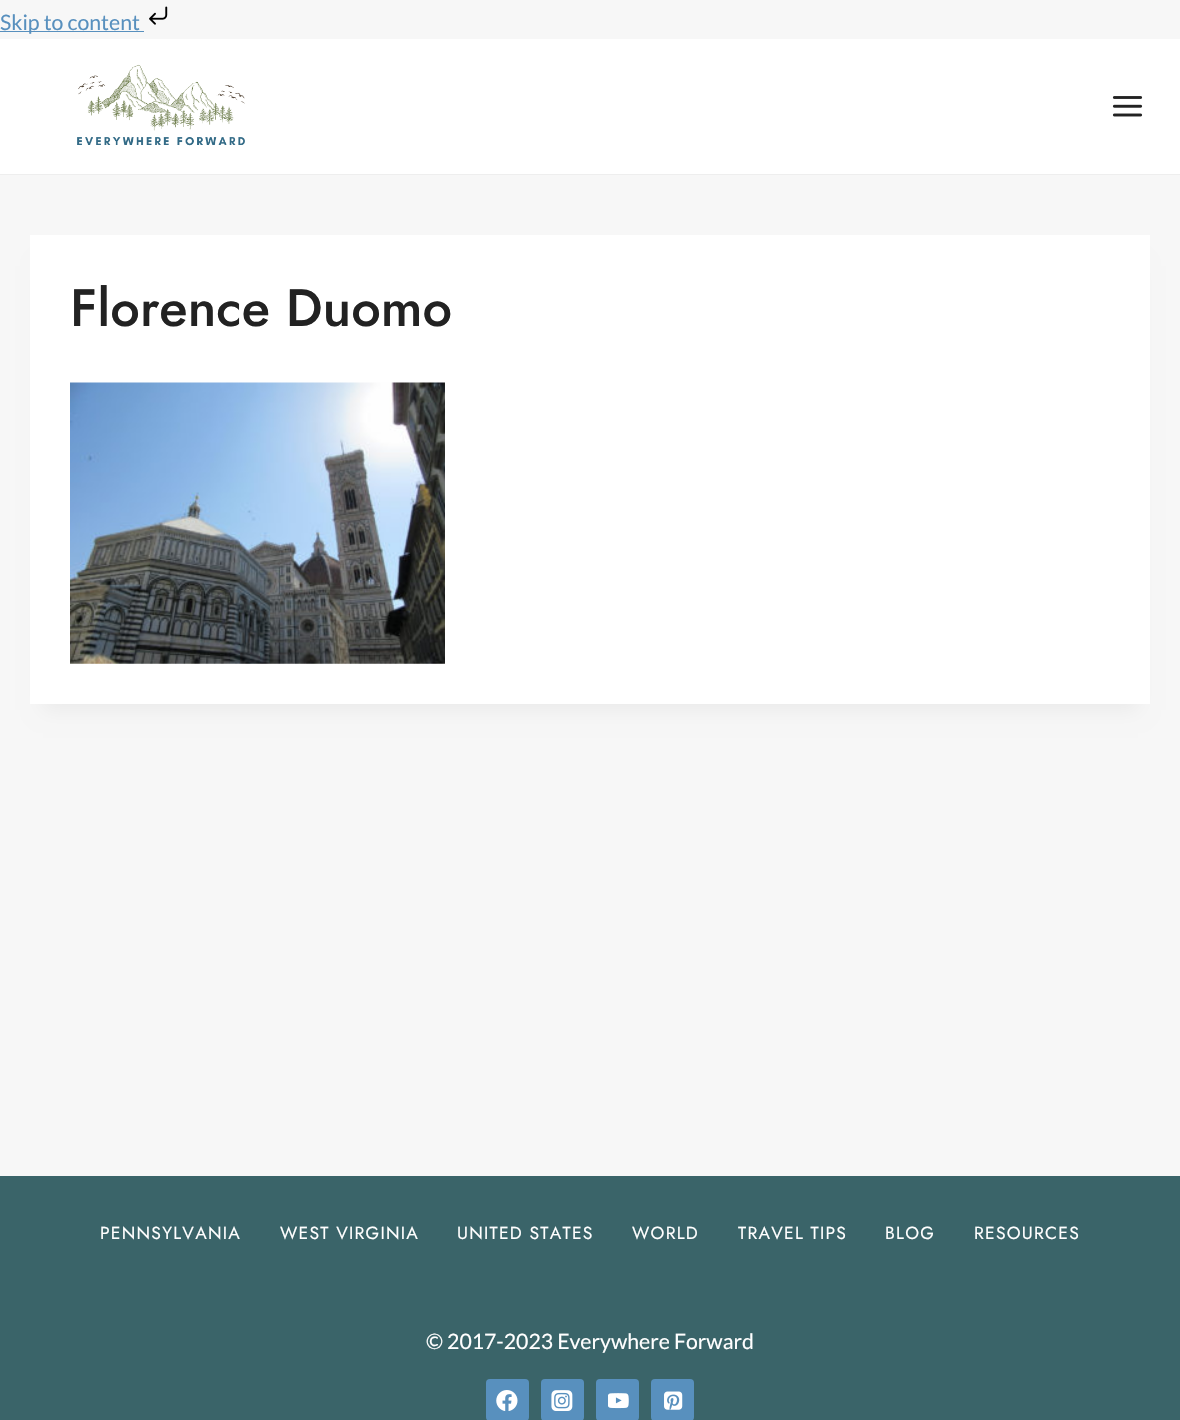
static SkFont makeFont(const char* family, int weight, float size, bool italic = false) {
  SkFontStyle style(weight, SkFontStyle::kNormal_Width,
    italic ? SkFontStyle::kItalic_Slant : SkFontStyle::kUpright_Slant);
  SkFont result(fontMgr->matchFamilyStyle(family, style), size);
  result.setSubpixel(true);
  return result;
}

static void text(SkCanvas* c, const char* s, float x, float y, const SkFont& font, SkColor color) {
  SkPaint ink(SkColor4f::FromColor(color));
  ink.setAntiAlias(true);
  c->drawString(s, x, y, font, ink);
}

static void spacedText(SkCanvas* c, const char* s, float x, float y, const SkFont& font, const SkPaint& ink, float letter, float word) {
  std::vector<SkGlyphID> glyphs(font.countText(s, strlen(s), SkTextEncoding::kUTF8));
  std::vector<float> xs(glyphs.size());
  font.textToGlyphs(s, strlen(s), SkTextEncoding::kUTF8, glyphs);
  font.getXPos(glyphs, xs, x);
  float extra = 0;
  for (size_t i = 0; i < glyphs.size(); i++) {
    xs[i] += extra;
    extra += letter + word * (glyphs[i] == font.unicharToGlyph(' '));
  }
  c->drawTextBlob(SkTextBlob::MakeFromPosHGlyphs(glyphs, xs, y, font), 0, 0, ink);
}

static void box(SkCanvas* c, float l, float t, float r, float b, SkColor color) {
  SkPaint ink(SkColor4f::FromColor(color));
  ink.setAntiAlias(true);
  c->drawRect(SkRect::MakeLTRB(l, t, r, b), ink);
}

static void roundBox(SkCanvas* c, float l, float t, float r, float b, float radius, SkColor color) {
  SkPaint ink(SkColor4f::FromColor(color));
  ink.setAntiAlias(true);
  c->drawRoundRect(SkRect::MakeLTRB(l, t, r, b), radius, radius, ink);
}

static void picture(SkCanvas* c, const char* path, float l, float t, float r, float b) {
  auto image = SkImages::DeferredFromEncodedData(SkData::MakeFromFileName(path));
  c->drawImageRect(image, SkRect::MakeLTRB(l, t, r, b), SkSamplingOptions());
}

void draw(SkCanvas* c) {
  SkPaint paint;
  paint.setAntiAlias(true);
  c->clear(0xfff7f7f7);
  box(c, 0, 31, 144, 32, 0xff5890be);
  SkFont face1 = makeFont("Lato", 400, 21.25f);
  text(c, "Skip to content", 0, 30, face1, 0xff5890be);
  picture(c, "img_01.png", 149, 6, 168, 25);
  box(c, 0, 39, 1180, 174, 0xffffffff);
  box(c, 0, 174, 1180, 175, 0xffeeeeee);
  picture(c, "img_02.png", 77, 64, 245, 146);
  picture(c, "img_03.png", 1112, 96, 1143, 117);
  paint.setColor(0x0d000000);
  paint.setMaskFilter(SkMaskFilter::MakeBlur(kNormal_SkBlurStyle, 9.5f));
  c->drawRect(SkRect::MakeLTRB(43, 266, 1138, 710), paint);
  paint.setMaskFilter(nullptr);
  box(c, 30, 235, 1150, 704, 0xffffffff);
  SkFont face2 = makeFont("Jost", 500, 52.5f);
  text(c, "Florence Duomo", 70, 326, face2, 0xff222222);
  picture(c, "img_04.png", 70, 382, 445, 664);
  box(c, 0, 1176, 1180, 1420, 0xff3a6469);
  SkFont face3 = makeFont("Jost", 400, 17.5f);
  paint.setColor(0xffffffff);
  spacedText(c, "PENNSYLVANIA", 100, 1239, face3, paint, 1.25f, 0);
  spacedText(c, "WEST VIRGINIA", 280, 1239, face3, paint, 1.25f, 0);
  spacedText(c, "UNITED STATES", 457, 1239, face3, paint, 1.25f, 0);
  spacedText(c, "WORLD", 632, 1239, face3, paint, 1.25f, 0);
  spacedText(c, "TRAVEL TIPS", 738, 1239, face3, paint, 1.25f, 0);
  spacedText(c, "BLOG", 885, 1239, face3, paint, 1.25f, 0);
  spacedText(c, "RESOURCES", 974, 1239, face3, paint, 1.25f, 0);
  text(c, "© 2017-2023 Everywhere Forward", 426, 1349, face1, 0xffffffff);
  roundBox(c, 486, 1379, 529, 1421, 4, 0xff5890be);
  picture(c, "img_05.png", 496, 1390, 518, 1411);
  roundBox(c, 541, 1379, 584, 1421, 4, 0xff5890be);
  picture(c, "img_06.png", 551, 1390, 573, 1411);
  roundBox(c, 596, 1379, 639, 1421, 4, 0xff5890be);
  picture(c, "img_07.png", 608, 1393, 629, 1409);
  roundBox(c, 651, 1379, 694, 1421, 4, 0xff5890be);
  picture(c, "img_08.png", 664, 1391, 683, 1410);
}
